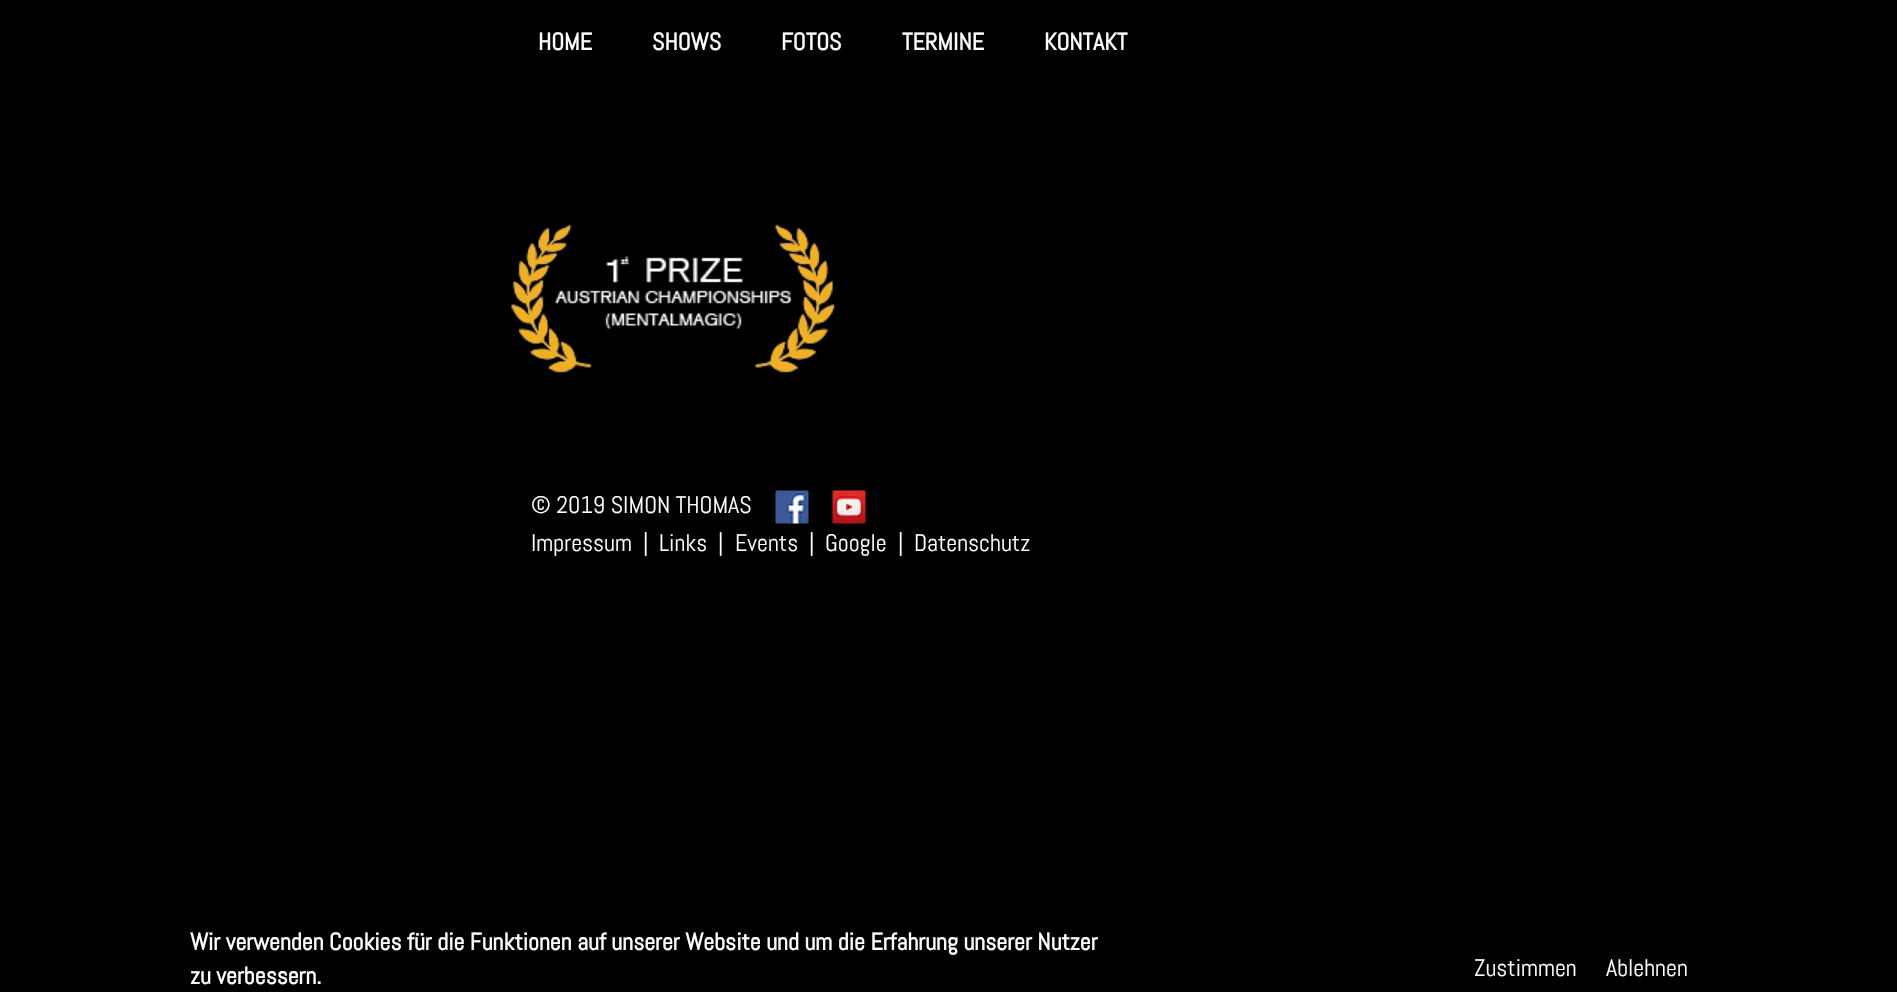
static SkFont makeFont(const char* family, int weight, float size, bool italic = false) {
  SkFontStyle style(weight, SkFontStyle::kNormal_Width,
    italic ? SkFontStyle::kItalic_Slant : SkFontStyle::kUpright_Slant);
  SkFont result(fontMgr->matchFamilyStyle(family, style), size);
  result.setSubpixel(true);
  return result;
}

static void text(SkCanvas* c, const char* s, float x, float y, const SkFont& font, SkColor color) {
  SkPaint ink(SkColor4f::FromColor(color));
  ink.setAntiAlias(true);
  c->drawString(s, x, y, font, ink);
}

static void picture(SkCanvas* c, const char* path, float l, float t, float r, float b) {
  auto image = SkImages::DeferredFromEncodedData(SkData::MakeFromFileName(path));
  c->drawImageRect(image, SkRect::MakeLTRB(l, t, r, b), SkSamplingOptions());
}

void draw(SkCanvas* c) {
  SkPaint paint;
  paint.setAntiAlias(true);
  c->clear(0xff000000);
  SkFont face1 = makeFont("Abel", 700, 24);
  text(c, "HOME", 538, 50, face1, 0xffffffff);
  text(c, "SHOWS", 652, 50, face1, 0xffffffff);
  text(c, "FOTOS", 781, 50, face1, 0xffffffff);
  text(c, "TERMINE", 902, 50, face1, 0xffffffff);
  text(c, "KONTAKT", 1044, 50, face1, 0xffffffff);
  picture(c, "img_01.png", 511, 224, 835, 373);
  SkFont face2 = makeFont("Abel", 400, 24);
  text(c, "© 2019 SIMON THOMAS", 531, 513, face2, 0xffffffff);
  picture(c, "img_02.png", 775, 490, 809, 524);
  picture(c, "img_03.png", 832, 490, 866, 524);
  text(c, "Impressum", 531, 551, face2, 0xffffffff);
  text(c, "|", 643, 551, face2, 0xffffffff);
  text(c, "Links", 659, 551, face2, 0xffffffff);
  text(c, "|", 718, 551, face2, 0xffffffff);
  text(c, "Events", 735, 551, face2, 0xffffffff);
  text(c, "|", 809, 551, face2, 0xffffffff);
  text(c, "Google", 825, 551, face2, 0xffffffff);
  text(c, "|", 898, 551, face2, 0xffffffff);
  text(c, "Datenschutz", 914, 551, face2, 0xffffffff);
  text(c, "Wir verwenden Cookies für die Funktionen auf unserer Website und um die Erfahrung unserer Nutzer", 190, 950, face1, 0xffffffff);
  text(c, "zu verbessern.", 190, 984, face1, 0xffffffff);
  text(c, "Zustimmen", 1474, 976, face2, 0xffffffff);
  text(c, "Ablehnen", 1606, 976, face2, 0xffffffff);
}
